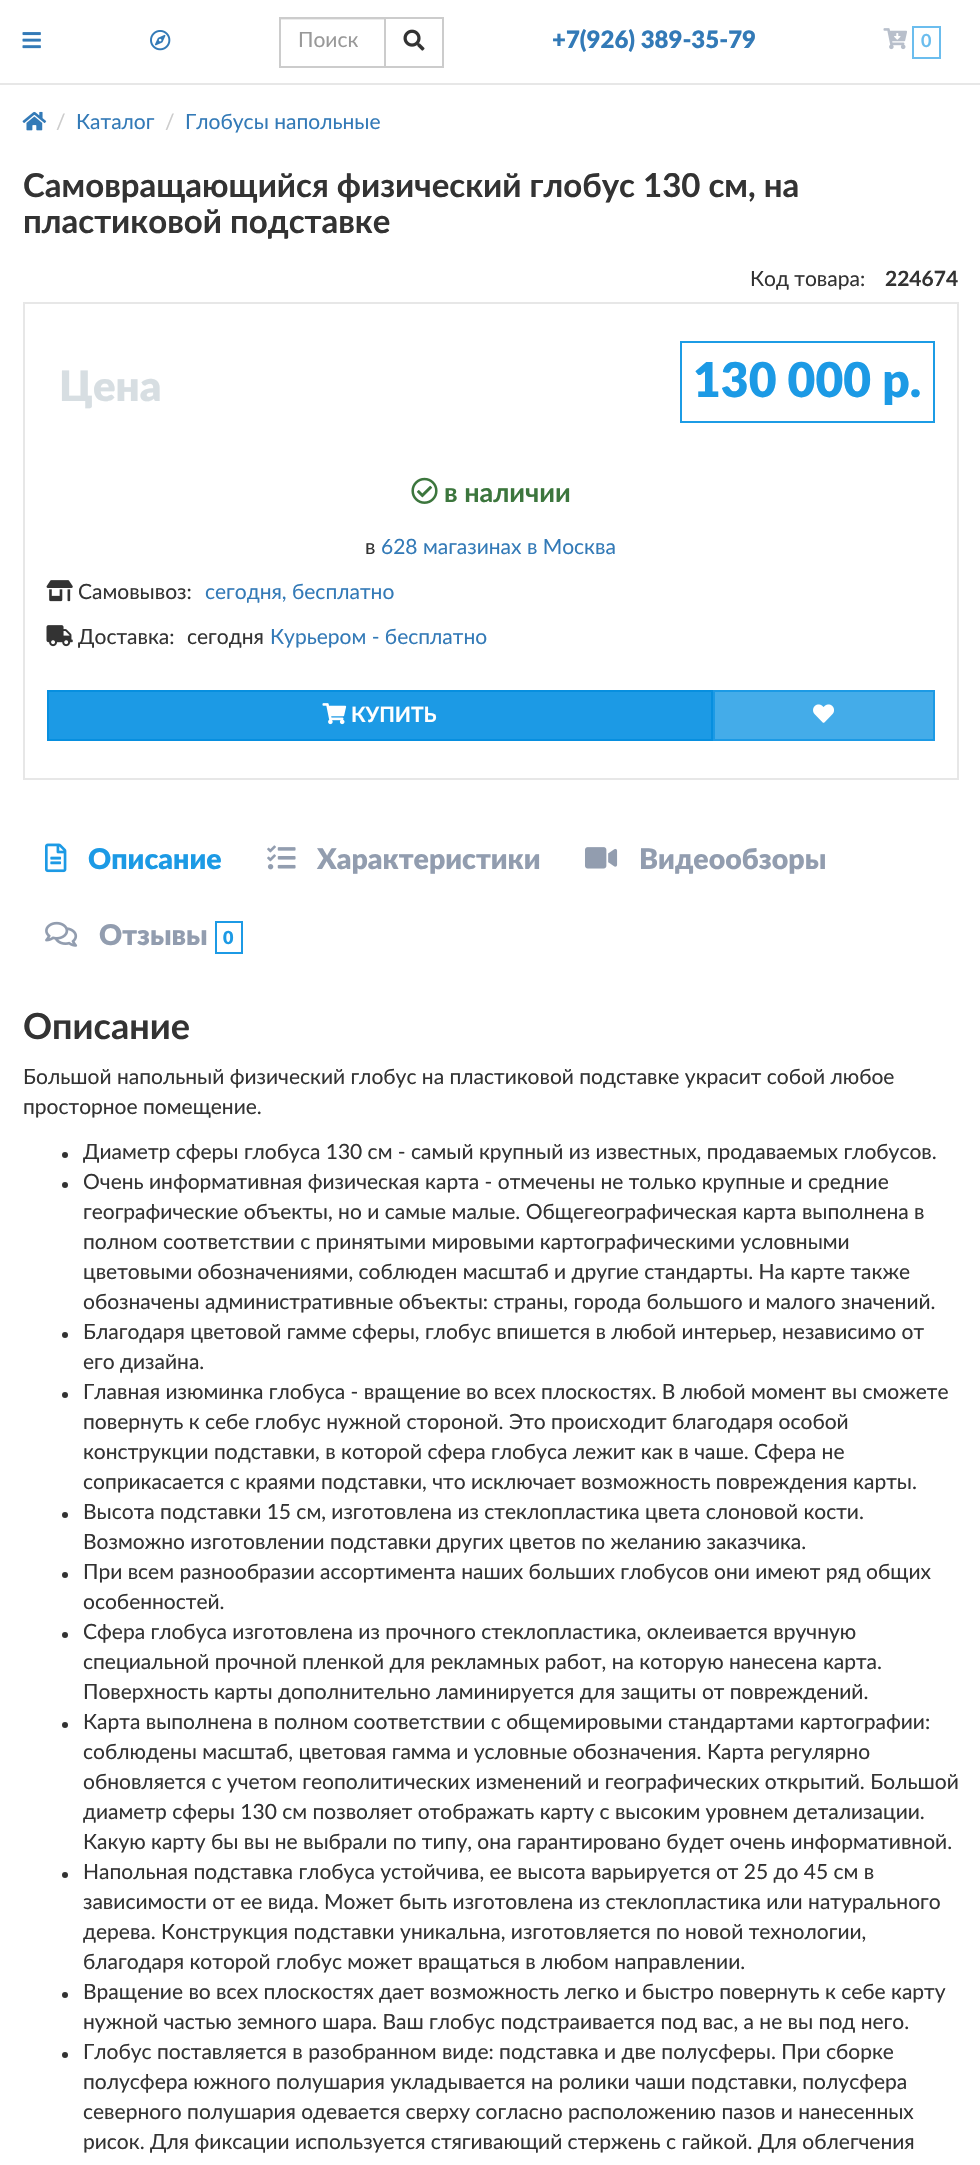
static SkFont makeFont(const char* family, int weight, float size, bool italic = false) {
  SkFontStyle style(weight, SkFontStyle::kNormal_Width,
    italic ? SkFontStyle::kItalic_Slant : SkFontStyle::kUpright_Slant);
  SkFont result(fontMgr->matchFamilyStyle(family, style), size);
  result.setSubpixel(true);
  return result;
}

static void text(SkCanvas* c, const char* s, float x, float y, const SkFont& font, SkColor color) {
  SkPaint ink(SkColor4f::FromColor(color));
  ink.setAntiAlias(true);
  c->drawString(s, x, y, font, ink);
}

static void box(SkCanvas* c, float l, float t, float r, float b, SkColor color) {
  SkPaint ink(SkColor4f::FromColor(color));
  ink.setAntiAlias(true);
  c->drawRect(SkRect::MakeLTRB(l, t, r, b), ink);
}

static void picture(SkCanvas* c, const char* path, float l, float t, float r, float b) {
  auto image = SkImages::DeferredFromEncodedData(SkData::MakeFromFileName(path));
  c->drawImageRect(image, SkRect::MakeLTRB(l, t, r, b), SkSamplingOptions());
}

void draw(SkCanvas* c) {
  SkPaint paint;
  paint.setAntiAlias(true);
  c->clear(0xffffffff);
  box(c, 0, 83, 980, 85, 0xffe7e7e7);
  picture(c, "img_01.png", 22, 32, 41, 49);
  picture(c, "img_02.png", 150, 30, 171, 51);
  box(c, 281, 19, 384, 20, 0xffececec);
  paint.setStyle(SkPaint::kStroke_Style);
  paint.setStrokeWidth(2);
  paint.setColor(0xffcccccc);
  c->drawRect(SkRect::MakeLTRB(280, 18, 385, 67), paint);
  SkFont face1 = makeFont("Lato", 400, 21);
  text(c, "Поиск", 298, 47, face1, 0xff999999);
  c->drawRect(SkRect::MakeLTRB(385, 18, 443, 67), paint);
  picture(c, "img_03.png", 403, 29, 425, 51);
  SkFont face2 = makeFont("Lato", 900, 24);
  text(c, "+7(926) 389-35-79", 552, 48, face2, 0xff337ab7);
  picture(c, "img_04.png", 883, 28, 907, 50);
  paint.setColor(0xff6bbdee);
  c->drawRect(SkRect::MakeLTRB(913, 27, 940, 58), paint);
  SkFont face3 = makeFont("Lato", 700, 18);
  text(c, "0", 921, 47, face3, 0xff6bbdee);
  picture(c, "img_05.png", 22, 111, 47, 131);
  text(c, "/", 56, 129, face1, 0xffcccccc);
  text(c, "Каталог", 76, 129, face1, 0xff337ab7);
  text(c, "/", 165, 129, face1, 0xffcccccc);
  text(c, "Глобусы напольные", 185, 129, face1, 0xff337ab7);
  SkFont face4 = makeFont("Lato", 700, 33);
  text(c, "Самовращающийся физический глобус 130 см, на", 23, 197, face4, 0xff333333);
  text(c, "пластиковой подставке", 23, 233, face4, 0xff333333);
  text(c, "Код товара:", 750, 286, face1, 0xff333333);
  SkFont face5 = makeFont("Lato", 700, 21);
  text(c, "224674", 885, 286, face5, 0xff333333);
  paint.setColor(0xffe7e7e7);
  c->drawRect(SkRect::MakeLTRB(24, 303, 958, 779), paint);
  SkFont face6 = makeFont("Lato", 900, 42);
  text(c, "Цена", 59, 401, face6, 0xffd7dee2);
  paint.setColor(0xff1c9ce5);
  c->drawRect(SkRect::MakeLTRB(681, 342, 934, 422), paint);
  SkFont face7 = makeFont("Lato", 900, 48);
  text(c, "130 000 р.", 693, 397, face7, 0xff1c9ae5);
  picture(c, "img_06.png", 411, 477, 438, 504);
  SkFont face8 = makeFont("Lato", 700, 27);
  text(c, "в наличии", 444, 502, face8, 0xff3c763d);
  text(c, "в", 365, 554, face1, 0xff333333);
  text(c, "628 магазинах в Москва", 381, 554, face1, 0xff337ab7);
  picture(c, "img_07.png", 46, 580, 73, 602);
  text(c, "Самовывоз:", 78, 599, face1, 0xff333333);
  text(c, "сегодня, бесплатно", 205, 599, face1, 0xff337ab7);
  picture(c, "img_08.png", 46, 625, 73, 647);
  text(c, "Доставка:", 78, 644, face1, 0xff333333);
  text(c, "сегодня", 187, 644, face1, 0xff333333);
  text(c, "Курьером - бесплатно", 270, 644, face1, 0xff337ab7);
  paint.setStyle(SkPaint::kFill_Style);
  paint.setColor(0xff1c9ae5);
  c->drawRect(SkRect::MakeLTRB(48, 691, 712, 740), paint);
  paint.setStyle(SkPaint::kStroke_Style);
  paint.setColor(0xff078fdf);
  c->drawRect(SkRect::MakeLTRB(48, 691, 712, 740), paint);
  picture(c, "img_09.png", 322, 703, 347, 725);
  text(c, "КУПИТЬ", 351, 722, face5, 0xffffffff);
  paint.setStyle(SkPaint::kFill_Style);
  paint.setColor(0xff44ace9);
  c->drawRect(SkRect::MakeLTRB(714, 691, 934, 740), paint);
  paint.setStyle(SkPaint::kStroke_Style);
  paint.setColor(0xff1c9ae5);
  c->drawRect(SkRect::MakeLTRB(714, 691, 934, 740), paint);
  picture(c, "img_10.png", 813, 704, 834, 723);
  picture(c, "img_11.png", 45, 843, 67, 873);
  SkFont face9 = makeFont("Lato", 900, 28.5f);
  text(c, "Описание", 88, 869, face9, 0xff1c9ae5);
  picture(c, "img_12.png", 267, 845, 296, 870);
  text(c, "Характеристики", 317, 869, face9, 0xff929daf);
  picture(c, "img_13.png", 585, 847, 618, 869);
  text(c, "Видеообзоры", 639, 869, face9, 0xff929daf);
  picture(c, "img_14.png", 45, 921, 78, 947);
  text(c, "Отзывы", 99, 945, face9, 0xff929daf);
  c->drawRect(SkRect::MakeLTRB(216, 922, 242, 953), paint);
  SkFont face10 = makeFont("Lato", 900, 18);
  text(c, "0", 223, 944, face10, 0xff1c9ae5);
  SkFont face11 = makeFont("Lato", 700, 36);
  text(c, "Описание", 23, 1039, face11, 0xff333333);
  text(c, "Большой напольный физический глобус на пластиковой подставке украсит собой любое", 23, 1084, face1, 0xff333333);
  text(c, "просторное помещение.", 23, 1114, face1, 0xff333333);
  paint.setStyle(SkPaint::kFill_Style);
  paint.setColor(0xff333333);
  c->drawCircle(65, 1155, 3, paint);
  text(c, "Диаметр сферы глобуса 130 см - самый крупный из известных, продаваемых глобусов.", 83, 1159, face1, 0xff333333);
  c->drawCircle(65, 1185, 3, paint);
  text(c, "Очень информативная физическая карта - отмечены не только крупные и средние", 83, 1189, face1, 0xff333333);
  text(c, "географические объекты, но и самые малые. Общегеографическая карта выполнена в", 83, 1219, face1, 0xff333333);
  text(c, "полном соответствии с принятыми мировыми картографическими условными", 83, 1249, face1, 0xff333333);
  text(c, "цветовыми обозначениями, соблюден масштаб и другие стандарты. На карте также", 83, 1279, face1, 0xff333333);
  text(c, "обозначены административные объекты: страны, города большого и малого значений.", 83, 1309, face1, 0xff333333);
  c->drawCircle(65, 1335, 3, paint);
  text(c, "Благодаря цветовой гамме сферы, глобус впишется в любой интерьер, независимо от", 83, 1339, face1, 0xff333333);
  text(c, "его дизайна.", 83, 1369, face1, 0xff333333);
  c->drawCircle(65, 1395, 3, paint);
  text(c, "Главная изюминка глобуса - вращение во всех плоскостях. В любой момент вы сможете", 83, 1399, face1, 0xff333333);
  text(c, "повернуть к себе глобус нужной стороной. Это происходит благодаря особой", 83, 1429, face1, 0xff333333);
  text(c, "конструкции подставки, в которой сфера глобуса лежит как в чаше. Сфера не", 83, 1459, face1, 0xff333333);
  text(c, "соприкасается с краями подставки, что исключает возможность повреждения карты.", 83, 1489, face1, 0xff333333);
  c->drawCircle(65, 1515, 3, paint);
  text(c, "Высота подставки 15 см, изготовлена из стеклопластика цвета слоновой кости.", 83, 1519, face1, 0xff333333);
  text(c, "Возможно изготовлении подставки других цветов по желанию заказчика.", 83, 1549, face1, 0xff333333);
  c->drawCircle(65, 1575, 3, paint);
  text(c, "При всем разнообразии ассортимента наших больших глобусов они имеют ряд общих", 83, 1579, face1, 0xff333333);
  text(c, "особенностей.", 83, 1609, face1, 0xff333333);
  c->drawCircle(65, 1635, 3, paint);
  text(c, "Сфера глобуса изготовлена из прочного стеклопластика, оклеивается вручную", 83, 1639, face1, 0xff333333);
  text(c, "специальной прочной пленкой для рекламных работ, на которую нанесена карта.", 83, 1669, face1, 0xff333333);
  text(c, "Поверхность карты дополнительно ламинируется для защиты от повреждений.", 83, 1699, face1, 0xff333333);
  c->drawCircle(65, 1725, 3, paint);
  text(c, "Карта выполнена в полном соответствии с общемировыми стандартами картографии:", 83, 1729, face1, 0xff333333);
  text(c, "соблюдены масштаб, цветовая гамма и условные обозначения. Карта регулярно", 83, 1759, face1, 0xff333333);
  text(c, "обновляется с учетом геополитических изменений и географических открытий. Большой", 83, 1789, face1, 0xff333333);
  text(c, "диаметр сферы 130 см позволяет отображать карту с высоким уровнем детализации.", 83, 1819, face1, 0xff333333);
  text(c, "Какую карту бы вы не выбрали по типу, она гарантировано будет очень информативной.", 83, 1849, face1, 0xff333333);
  c->drawCircle(65, 1875, 3, paint);
  text(c, "Напольная подставка глобуса устойчива, ее высота варьируется от 25 до 45 см в", 83, 1879, face1, 0xff333333);
  text(c, "зависимости от ее вида. Может быть изготовлена из стеклопластика или натурального", 83, 1909, face1, 0xff333333);
  text(c, "дерева. Конструкция подставки уникальна, изготовляется по новой технологии,", 83, 1939, face1, 0xff333333);
  text(c, "благодаря которой глобус может вращаться в любом направлении.", 83, 1969, face1, 0xff333333);
  c->drawCircle(65, 1995, 3, paint);
  text(c, "Вращение во всех плоскостях дает возможность легко и быстро повернуть к себе карту", 83, 1999, face1, 0xff333333);
  text(c, "нужной частью земного шара. Ваш глобус подстраивается под вас, а не вы под него.", 83, 2029, face1, 0xff333333);
  c->drawCircle(65, 2055, 3, paint);
  text(c, "Глобус поставляется в разобранном виде: подставка и две полусферы. При сборке", 83, 2059, face1, 0xff333333);
  text(c, "полусфера южного полушария укладывается на ролики чаши подставки, полусфера", 83, 2089, face1, 0xff333333);
  text(c, "северного полушария одевается сверху согласно расположению пазов и нанесенных", 83, 2119, face1, 0xff333333);
  text(c, "рисок. Для фиксации используется стягивающий стержень с гайкой. Для облегчения", 83, 2149, face1, 0xff333333);
}
